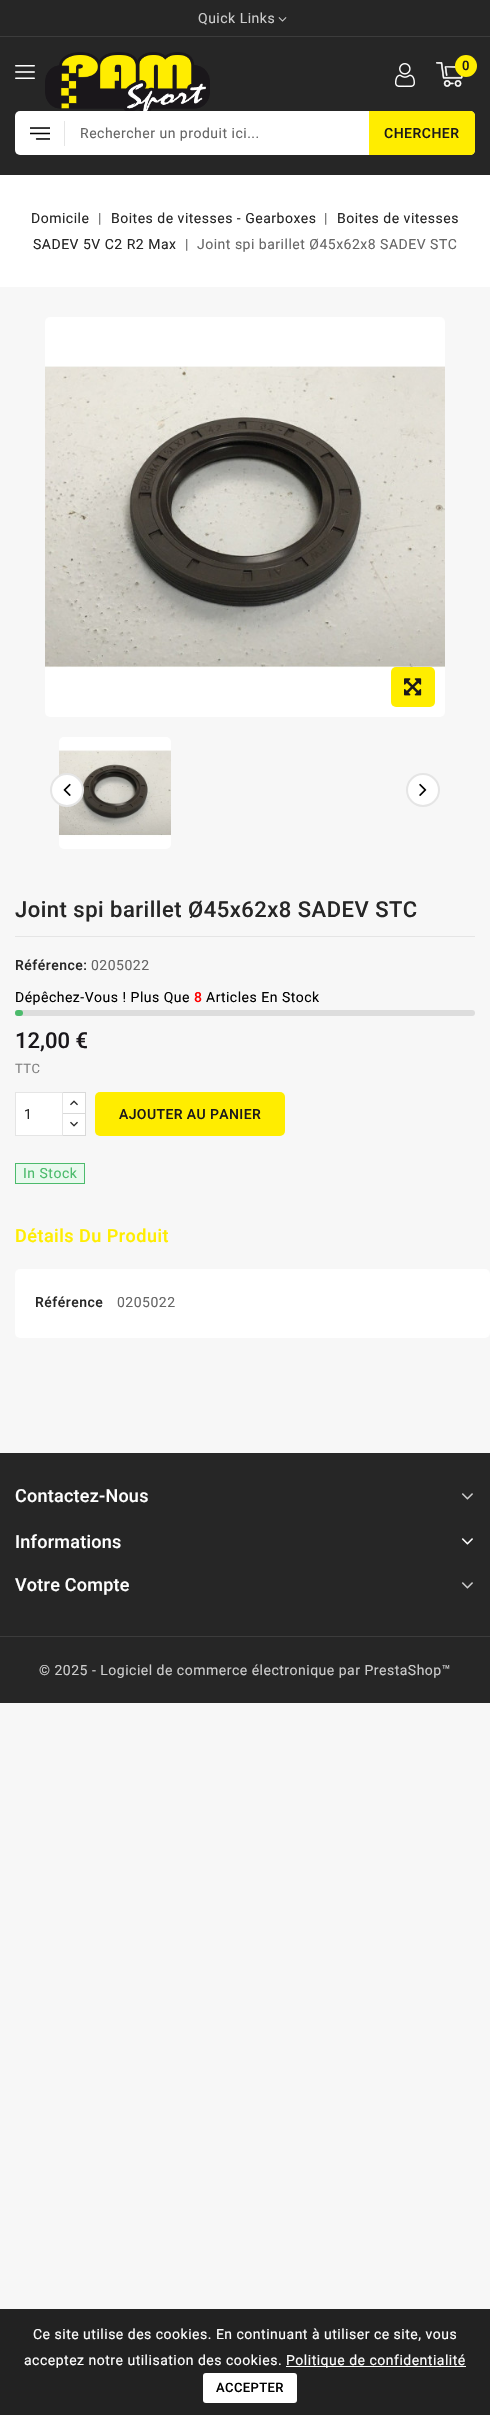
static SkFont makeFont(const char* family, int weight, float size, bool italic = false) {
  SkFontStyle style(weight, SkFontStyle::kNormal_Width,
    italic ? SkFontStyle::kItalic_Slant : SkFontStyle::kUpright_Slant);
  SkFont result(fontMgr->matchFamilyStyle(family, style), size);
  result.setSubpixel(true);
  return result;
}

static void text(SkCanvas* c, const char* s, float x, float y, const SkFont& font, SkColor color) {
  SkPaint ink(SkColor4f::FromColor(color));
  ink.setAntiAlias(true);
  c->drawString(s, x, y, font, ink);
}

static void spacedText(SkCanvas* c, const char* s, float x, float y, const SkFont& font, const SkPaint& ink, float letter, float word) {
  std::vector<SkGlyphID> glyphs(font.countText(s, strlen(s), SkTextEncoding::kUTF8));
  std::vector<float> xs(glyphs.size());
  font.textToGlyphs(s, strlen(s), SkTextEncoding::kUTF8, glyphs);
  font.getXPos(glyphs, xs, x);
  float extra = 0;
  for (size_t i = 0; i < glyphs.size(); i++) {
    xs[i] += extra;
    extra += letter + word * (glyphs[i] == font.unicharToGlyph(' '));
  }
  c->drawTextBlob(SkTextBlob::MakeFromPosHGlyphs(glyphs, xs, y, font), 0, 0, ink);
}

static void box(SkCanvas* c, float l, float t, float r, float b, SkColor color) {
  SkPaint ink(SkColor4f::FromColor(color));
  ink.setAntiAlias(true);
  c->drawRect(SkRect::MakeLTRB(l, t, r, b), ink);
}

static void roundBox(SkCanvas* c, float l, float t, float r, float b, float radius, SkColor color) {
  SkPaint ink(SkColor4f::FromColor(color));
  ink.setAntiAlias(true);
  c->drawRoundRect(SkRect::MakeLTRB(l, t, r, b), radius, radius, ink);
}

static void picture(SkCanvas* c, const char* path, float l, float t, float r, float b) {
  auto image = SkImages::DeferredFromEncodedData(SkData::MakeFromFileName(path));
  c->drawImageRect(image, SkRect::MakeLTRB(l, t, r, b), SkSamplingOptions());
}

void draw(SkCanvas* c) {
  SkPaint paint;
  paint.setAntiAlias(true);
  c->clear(0xfff7f7f7);
  box(c, 0, 0, 490, 175, 0xff262626);
  box(c, 0, 36, 490, 37, 0xff3c3c3c);
  SkFont face1 = makeFont("Roboto", 400, 14);
  paint.setColor(0xffcccccc);
  spacedText(c, "Quick Links", 198, 23, face1, paint, 0.5f, 0);
  picture(c, "img_01.png", 278, 17, 287, 22);
  picture(c, "img_02.png", 15, 65, 35, 79);
  picture(c, "img_03.png", 45, 52, 210, 111);
  picture(c, "img_04.png", 395, 63, 415, 87);
  picture(c, "img_05.png", 436, 62, 463, 87);
  paint.setColor(0xffffed00);
  c->drawCircle(466, 66, 11, paint);
  SkFont face2 = makeFont("Roboto", 500, 13);
  paint.setColor(0xff1a171b);
  spacedText(c, "0", 462, 70, face2, paint, 0.5f, 0);
  roundBox(c, 15, 111, 475, 155, 5, 0xffffffff);
  picture(c, "img_06.png", 30, 127, 50, 140);
  box(c, 64, 121, 65, 146, 0xffe5e5e5);
  paint.setColor(0xff666666);
  spacedText(c, "Rechercher un produit ici...", 80, 138, face1, paint, 0.5f, 0);
  paint.setColor(0xffffed00);
  c->drawPath(SkPathBuilder().moveTo(369, 111).lineTo(470, 111).cubicTo(473, 111, 475, 113, 475, 116).lineTo(475, 150).cubicTo(475, 153, 473, 155, 470, 155).lineTo(369, 155).close().detach(), paint);
  SkFont face3 = makeFont("Roboto", 500, 14);
  paint.setColor(0xff1a171b);
  spacedText(c, "CHERCHER", 384, 138, face3, paint, 0.5f, 0);
  box(c, 0, 175, 490, 287, 0xffffffff);
  paint.setColor(0xff262626);
  spacedText(c, "Domicile", 31, 223, face1, paint, 0.5f, 0);
  paint.setColor(0xff666666);
  spacedText(c, "|", 98, 223, face1, paint, 0.5f, 0);
  paint.setColor(0xff262626);
  spacedText(c, "Boites de vitesses - Gearboxes", 111, 223, face1, paint, 0.5f, 0);
  paint.setColor(0xff666666);
  spacedText(c, "|", 324, 223, face1, paint, 0.5f, 0);
  paint.setColor(0xff262626);
  spacedText(c, "Boites de vitesses", 337, 223, face1, paint, 0.5f, 0);
  spacedText(c, "SADEV 5V C2 R2 Max", 33, 249, face1, paint, 0.5f, 0);
  paint.setColor(0xff666666);
  spacedText(c, "|", 185, 249, face1, paint, 0.5f, 0);
  spacedText(c, "Joint spi barillet Ø45x62x8 SADEV STC", 197, 249, face1, paint, 0.5f, 0);
  roundBox(c, 45, 317, 445, 717, 5, 0xffffffff);
  picture(c, "img_07.png", 45, 366, 445, 668);
  roundBox(c, 391, 667, 435, 707, 5, 0xffffed00);
  picture(c, "img_08.png", 404, 678, 422, 696);
  picture(c, "img_09.png", 59, 737, 171, 849);
  paint.setColor(0xffffffff);
  c->drawCircle(67, 790, 16, paint);
  paint.setStyle(SkPaint::kStroke_Style);
  paint.setStrokeWidth(2);
  paint.setColor(0xffe5e5e5);
  c->drawCircle(67, 790, 16, paint);
  picture(c, "img_10.png", 63, 783, 71, 796);
  paint.setStyle(SkPaint::kFill_Style);
  paint.setColor(0xffffffff);
  c->drawCircle(423, 790, 16, paint);
  paint.setStyle(SkPaint::kStroke_Style);
  paint.setColor(0xffe5e5e5);
  c->drawCircle(423, 790, 16, paint);
  picture(c, "img_11.png", 419, 783, 427, 796);
  SkFont face4 = makeFont("Roboto", 500, 22);
  paint.setStyle(SkPaint::kFill_Style);
  paint.setColor(0xff262626);
  spacedText(c, "Joint spi barillet Ø45x62x8 SADEV STC", 15, 917, face4, paint, 0.5f, 0);
  box(c, 15, 936, 475, 937, 0xffe5e5e5);
  spacedText(c, "Référence:", 15, 970, face3, paint, 0.5f, 0);
  paint.setColor(0xff666666);
  spacedText(c, "0205022", 91, 970, face1, paint, 0.5f, 0);
  paint.setColor(0xff000000);
  spacedText(c, "Dépêchez-Vous ! Plus Que", 15, 1002, face1, paint, 0.5f, 0);
  paint.setColor(0xffff0000);
  spacedText(c, "8", 194, 1002, face3, paint, 0.5f, 0);
  paint.setColor(0xff000000);
  spacedText(c, "Articles En Stock", 206, 1002, face1, paint, 0.5f, 0);
  roundBox(c, 15, 1010, 475, 1016, 3, 0xffdddddd);
  roundBox(c, 15, 1010, 23, 1016, 3, 0xff4cbb6c);
  text(c, "12,00 €", 15, 1048, face4, 0xff1a171b);
  SkFont face5 = makeFont("Roboto", 400, 13);
  paint.setColor(0xff808080);
  spacedText(c, "TTC", 15, 1073, face5, paint, 0.5f, 0);
  box(c, 63, 1093, 85, 1113, 0xffffffff);
  paint.setStyle(SkPaint::kStroke_Style);
  paint.setStrokeWidth(1);
  paint.setColor(0xffd9d9d9);
  c->drawRect(SkRect::MakeLTRB(62.5f, 1092.5f, 85.5f, 1114.5f), paint);
  paint.setStyle(SkPaint::kFill_Style);
  paint.setColor(0xffffffff);
  c->drawRect(SkRect::MakeLTRB(62.5f, 1113.5f, 85.5f, 1135.5f), paint);
  paint.setStyle(SkPaint::kStroke_Style);
  paint.setColor(0xffd9d9d9);
  c->drawRect(SkRect::MakeLTRB(62.5f, 1113.5f, 85.5f, 1135.5f), paint);
  paint.setStyle(SkPaint::kFill_Style);
  paint.setColor(0xffffffff);
  c->drawRect(SkRect::MakeLTRB(15.5f, 1092.5f, 62.5f, 1135.5f), paint);
  paint.setStyle(SkPaint::kStroke_Style);
  paint.setColor(0xffe5e5e5);
  c->drawRect(SkRect::MakeLTRB(15.5f, 1092.5f, 62.5f, 1135.5f), paint);
  text(c, "1", 24, 1119, face1, 0xff262626);
  picture(c, "img_12.png", 70, 1100, 78, 1106);
  picture(c, "img_13.png", 70, 1121, 78, 1127);
  roundBox(c, 95, 1092, 285, 1136, 5, 0xffffed00);
  paint.setStyle(SkPaint::kFill_Style);
  paint.setColor(0xff1a171b);
  spacedText(c, "AJOUTER AU PANIER", 119, 1119, face3, paint, 0.4f, 0);
  paint.setColor(0xffe9f9ee);
  c->drawRect(SkRect::MakeLTRB(15.5f, 1163.5f, 84.5f, 1183.5f), paint);
  paint.setStyle(SkPaint::kStroke_Style);
  paint.setColor(0xff4cbb6c);
  c->drawRect(SkRect::MakeLTRB(15.5f, 1163.5f, 84.5f, 1183.5f), paint);
  paint.setStyle(SkPaint::kFill_Style);
  spacedText(c, "In Stock", 23, 1178, face1, paint, 0.5f, 0);
  SkFont face6 = makeFont("Roboto", 500, 18);
  paint.setColor(0xffffed00);
  spacedText(c, "Détails Du Produit", 15, 1242, face6, paint, 0.5f, 0);
  roundBox(c, 15, 1269, 490, 1338, 5, 0xffffffff);
  paint.setColor(0xff262626);
  spacedText(c, "Référence", 35, 1307, face3, paint, 0.5f, 0);
  paint.setColor(0xff666666);
  spacedText(c, "0205022", 117, 1307, face1, paint, 0.5f, 0);
  box(c, 0, 1453, 490, 1703, 0xff262626);
  paint.setColor(0xffffffff);
  spacedText(c, "Contactez-Nous", 15, 1502, face6, paint, 0.25f, 0);
  picture(c, "img_14.png", 461, 1493, 473, 1500);
  spacedText(c, "Informations", 15, 1548, face6, paint, 0.25f, 0);
  picture(c, "img_15.png", 461, 1538, 473, 1545);
  spacedText(c, "Votre Compte", 15, 1591, face6, paint, 0.25f, 0);
  picture(c, "img_14.png", 461, 1582, 473, 1589);
  box(c, 0, 2309, 490, 2415, 0xff222222);
  spacedText(c, "Ce site utilise des cookies. En continuant à utiliser ce site, vous", 33, 2339, face1, paint, 0.5f, 0);
  spacedText(c, "acceptez notre utilisation des cookies.", 24, 2365, face1, paint, 0.5f, 0);
  box(c, 286, 2366, 466, 2367, 0xffffffff);
  spacedText(c, "Politique de confidentialité", 286, 2365, face1, paint, 0.5f, 0);
  roundBox(c, 203, 2373, 297, 2403, 3, 0xffffffff);
  paint.setColor(0xff000000);
  spacedText(c, "ACCEPTER", 216, 2392, face2, paint, 0.4f, 0);
  box(c, 0, 1636, 490, 1637, 0xff3c3c3c);
  paint.setColor(0xffcccccc);
  spacedText(c, "© 2025 - Logiciel de commerce électronique par PrestaShop™", 39, 1675, face1, paint, 0.5f, 0);
}
